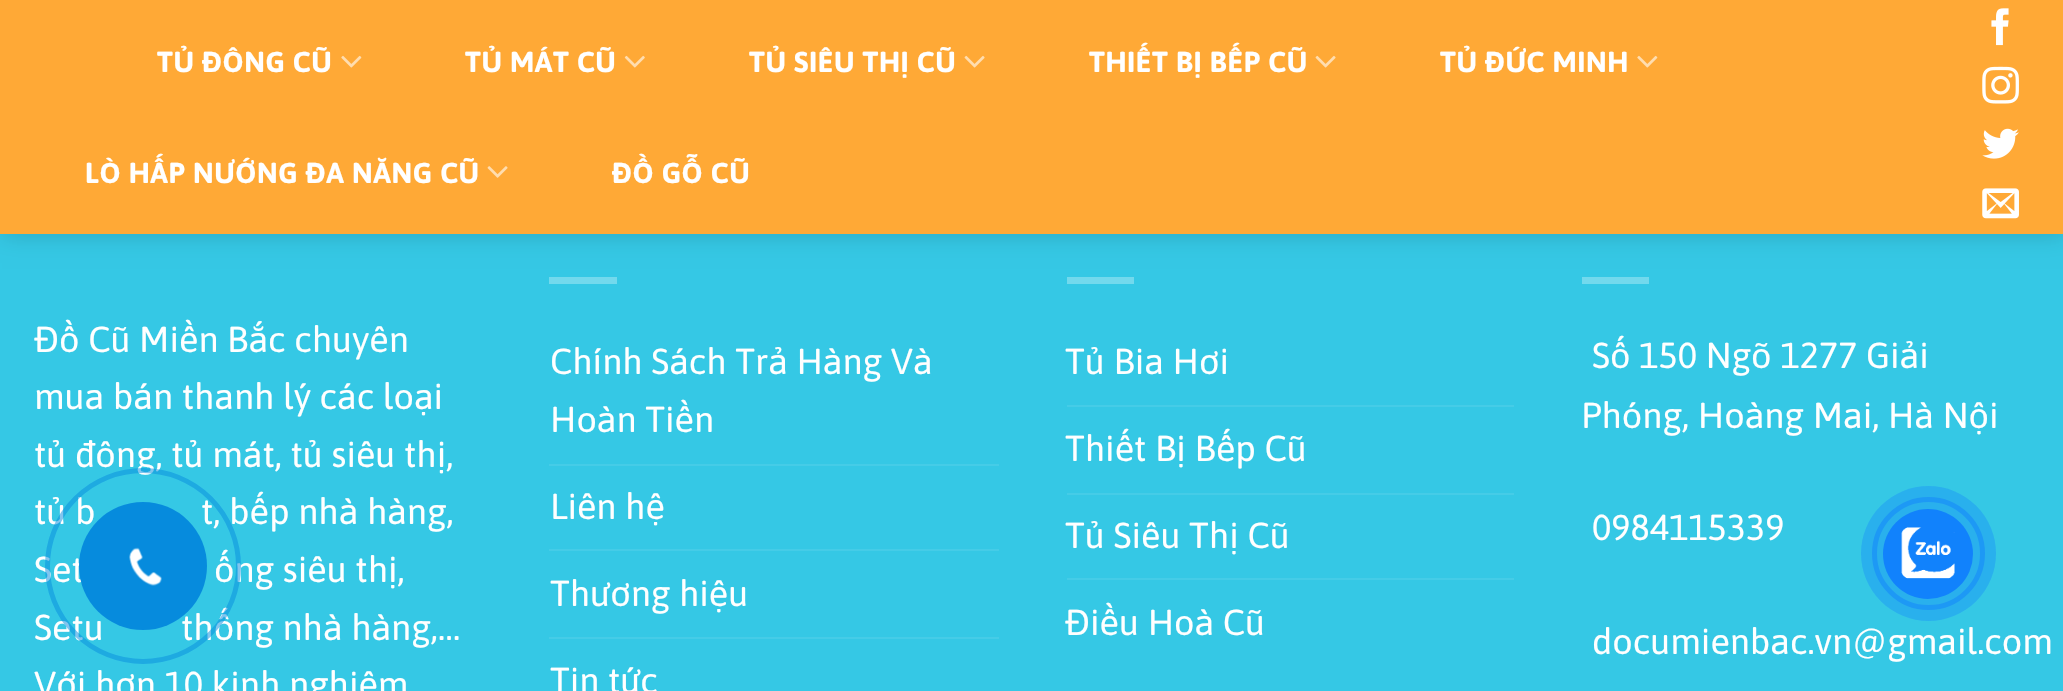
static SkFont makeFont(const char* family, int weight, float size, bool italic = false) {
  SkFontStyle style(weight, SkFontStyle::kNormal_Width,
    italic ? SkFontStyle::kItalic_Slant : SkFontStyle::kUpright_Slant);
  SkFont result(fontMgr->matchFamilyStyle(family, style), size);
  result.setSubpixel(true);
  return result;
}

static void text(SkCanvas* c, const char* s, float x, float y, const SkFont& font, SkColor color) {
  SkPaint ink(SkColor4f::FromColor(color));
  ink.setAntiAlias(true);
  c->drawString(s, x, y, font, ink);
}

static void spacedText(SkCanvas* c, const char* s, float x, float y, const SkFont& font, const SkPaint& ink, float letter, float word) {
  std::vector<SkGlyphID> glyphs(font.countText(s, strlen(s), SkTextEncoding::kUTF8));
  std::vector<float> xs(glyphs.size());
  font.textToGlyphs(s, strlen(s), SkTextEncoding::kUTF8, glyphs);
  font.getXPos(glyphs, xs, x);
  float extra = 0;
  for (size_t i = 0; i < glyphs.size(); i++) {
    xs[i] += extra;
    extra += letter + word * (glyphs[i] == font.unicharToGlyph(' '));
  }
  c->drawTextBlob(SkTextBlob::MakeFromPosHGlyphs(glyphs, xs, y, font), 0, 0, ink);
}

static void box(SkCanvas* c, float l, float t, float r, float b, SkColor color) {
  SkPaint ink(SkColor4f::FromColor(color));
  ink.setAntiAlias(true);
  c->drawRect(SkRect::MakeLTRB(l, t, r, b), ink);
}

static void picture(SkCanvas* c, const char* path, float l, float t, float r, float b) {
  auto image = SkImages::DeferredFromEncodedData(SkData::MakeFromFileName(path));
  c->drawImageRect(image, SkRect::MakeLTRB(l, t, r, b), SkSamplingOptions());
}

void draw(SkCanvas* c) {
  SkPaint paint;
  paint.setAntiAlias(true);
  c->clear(0xff35c8e5);
  paint.setColor(0x26000000);
  paint.setMaskFilter(SkMaskFilter::MakeBlur(kNormal_SkBlurStyle, 11));
  c->drawRect(SkRect::MakeLTRB(2, 2, 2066, 236), paint);
  paint.setMaskFilter(nullptr);
  box(c, 0, 0, 2063, 234, 0xffffa936);
  SkFont face1 = makeFont("Asap", 700, 28.75f);
  paint.setColor(0xffffffff);
  spacedText(c, "TỦ ĐÔNG CŨ", 157, 72, face1, paint, 0.6f, 0);
  picture(c, "img_01.png", 341, 55, 362, 68);
  spacedText(c, "TỦ MÁT CŨ", 465, 72, face1, paint, 0.6f, 0);
  picture(c, "img_02.png", 624, 55, 645, 68);
  spacedText(c, "TỦ SIÊU THỊ CŨ", 749, 72, face1, paint, 0.6f, 0);
  picture(c, "img_03.png", 964, 55, 985, 68);
  spacedText(c, "THIẾT BỊ BẾP CŨ", 1089, 72, face1, paint, 0.6f, 0);
  picture(c, "img_03.png", 1315, 55, 1336, 68);
  spacedText(c, "TỦ ĐỨC MINH", 1440, 72, face1, paint, 0.6f, 0);
  picture(c, "img_01.png", 1637, 55, 1658, 68);
  spacedText(c, "LÒ HẤP NƯỚNG ĐA NĂNG CŨ", 85, 183, face1, paint, 0.6f, 0);
  picture(c, "img_04.png", 487, 166, 508, 178);
  spacedText(c, "ĐỒ GỖ CŨ", 612, 183, face1, paint, 0.6f, 0);
  picture(c, "img_05.png", 1991, 8, 2009, 46);
  picture(c, "img_06.png", 1982, 66, 2019, 104);
  picture(c, "img_07.png", 1982, 128, 2019, 159);
  picture(c, "img_08.png", 1982, 188, 2019, 219);
  SkFont face2 = makeFont("Asap", 400, 36);
  text(c, "Đồ Cũ Miền Bắc chuyên", 34, 352, face2, 0xffffffff);
  text(c, "mua bán thanh lý các loại", 34, 409, face2, 0xffffffff);
  text(c, "tủ đông, tủ mát, tủ siêu thị,", 34, 467, face2, 0xffffffff);
  text(c, "tủ b", 34, 524, face2, 0xffffffff);
  text(c, "t, bếp nhà hàng,", 201, 524, face2, 0xffffffff);
  text(c, "Set", 34, 582, face2, 0xffffffff);
  text(c, "ống siêu thị,", 214, 582, face2, 0xffffffff);
  text(c, "Setu", 34, 640, face2, 0xffffffff);
  text(c, "thống nhà hàng,…", 181, 640, face2, 0xffffffff);
  text(c, "Với hơn 10 kinh nghiệm", 34, 697, face2, 0xffffffff);
  box(c, 549, 277, 617, 284, 0xff72d9ed);
  text(c, "Chính Sách Trả Hàng Và", 550, 374, face2, 0xffffffff);
  text(c, "Hoàn Tiền", 550, 432, face2, 0xffffffff);
  box(c, 549, 464, 999, 466, 0xff45cce7);
  text(c, "Liên hệ", 550, 519, face2, 0xffffffff);
  box(c, 549, 549, 999, 551, 0xff45cce7);
  text(c, "Thương hiệu", 550, 606, face2, 0xffffffff);
  box(c, 549, 637, 999, 639, 0xff45cce7);
  text(c, "Tin tức", 550, 693, face2, 0xffffffff);
  box(c, 1067, 277, 1134, 284, 0xff72d9ed);
  text(c, "Tủ Bia Hơi", 1065, 374, face2, 0xffffffff);
  box(c, 1067, 405, 1514, 407, 0xff45cce7);
  text(c, "Thiết Bị Bếp Cũ", 1065, 461, face2, 0xffffffff);
  box(c, 1067, 493, 1514, 495, 0xff45cce7);
  text(c, "Tủ Siêu Thị Cũ", 1065, 548, face2, 0xffffffff);
  box(c, 1067, 578, 1514, 580, 0xff45cce7);
  text(c, "Điều Hoà Cũ", 1065, 635, face2, 0xffffffff);
  box(c, 1582, 277, 1649, 284, 0xff72d9ed);
  text(c, "Số 150 Ngõ 1277 Giải", 1592, 368, face2, 0xffffffff);
  text(c, "Phóng, Hoàng Mai, Hà Nội", 1581, 428, face2, 0xffffffff);
  text(c, "0984115339", 1592, 540, face2, 0xffffffff);
  text(c, "documienbac.vn@gmail.com", 1592, 654, face2, 0xffffffff);
  paint.setStyle(SkPaint::kStroke_Style);
  paint.setStrokeWidth(5);
  paint.setColor(0x80068bdd);
  c->drawCircle(143, 566, 95.5f, paint);
  paint.setStyle(SkPaint::kFill_Style);
  paint.setColor(0xff068bdd);
  c->drawCircle(143, 566, 64, paint);
  picture(c, "img_09.png", 129, 547, 162, 586);
  paint.setStyle(SkPaint::kStroke_Style);
  paint.setColor(0xff23a5f1);
  c->drawCircle(1928.5f, 553.5f, 54, paint);
  paint.setStyle(SkPaint::kFill_Style);
  paint.setColor(0x571182fc);
  c->drawCircle(1928.5f, 553.5f, 67.5f, paint);
  paint.setColor(0xff1182fc);
  c->drawCircle(1928, 554, 45, paint);
  picture(c, "img_10.png", 1901, 527, 1955, 579);
}
